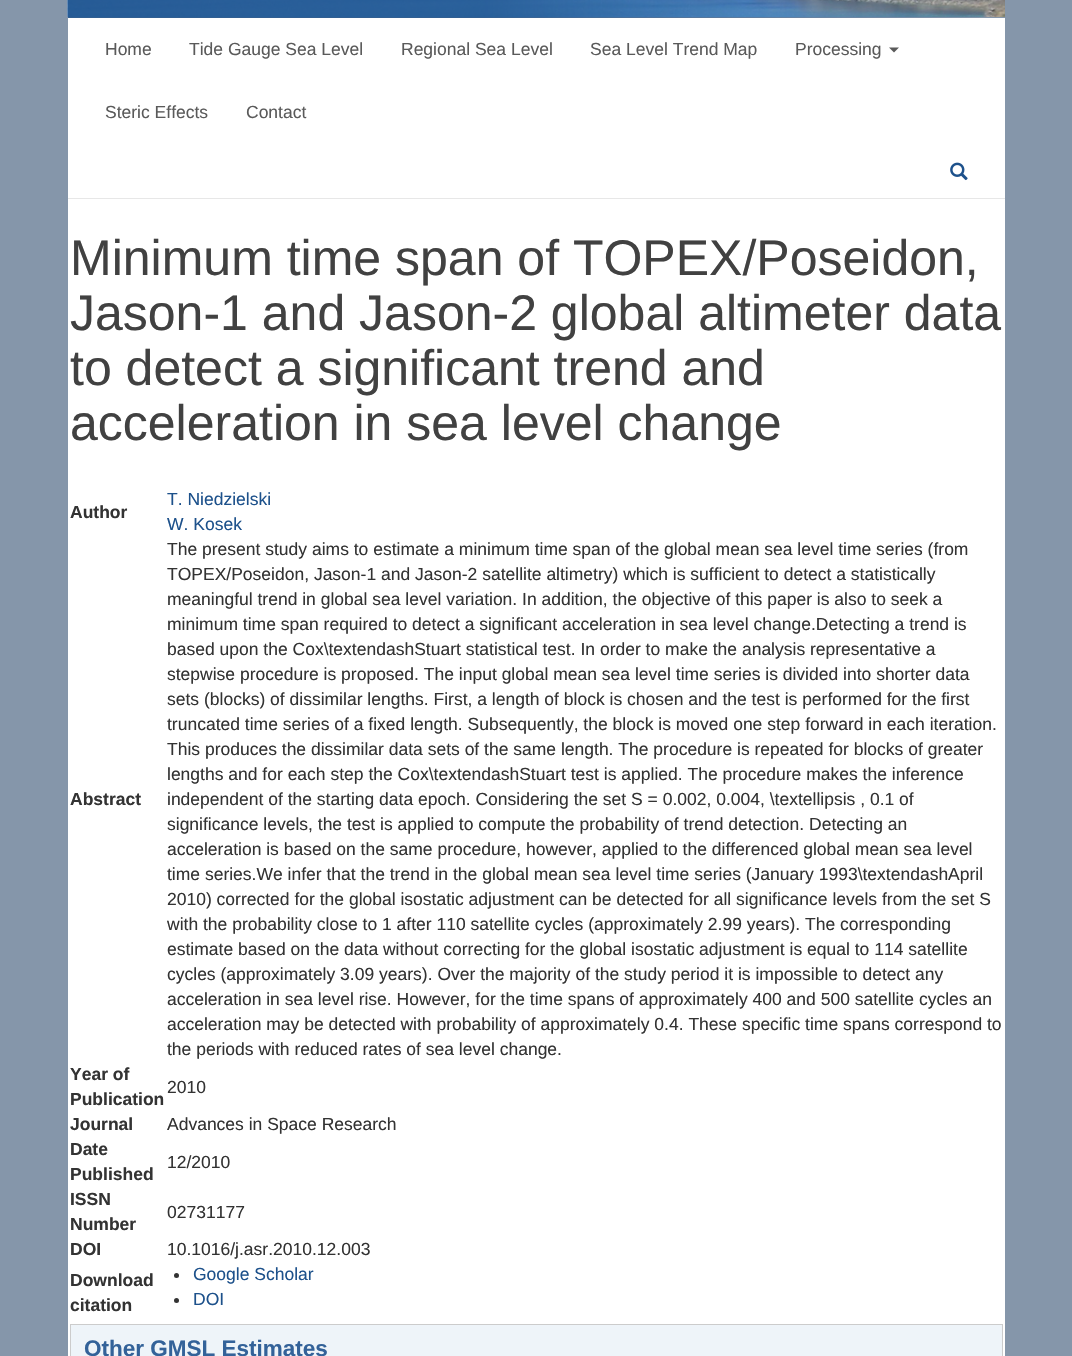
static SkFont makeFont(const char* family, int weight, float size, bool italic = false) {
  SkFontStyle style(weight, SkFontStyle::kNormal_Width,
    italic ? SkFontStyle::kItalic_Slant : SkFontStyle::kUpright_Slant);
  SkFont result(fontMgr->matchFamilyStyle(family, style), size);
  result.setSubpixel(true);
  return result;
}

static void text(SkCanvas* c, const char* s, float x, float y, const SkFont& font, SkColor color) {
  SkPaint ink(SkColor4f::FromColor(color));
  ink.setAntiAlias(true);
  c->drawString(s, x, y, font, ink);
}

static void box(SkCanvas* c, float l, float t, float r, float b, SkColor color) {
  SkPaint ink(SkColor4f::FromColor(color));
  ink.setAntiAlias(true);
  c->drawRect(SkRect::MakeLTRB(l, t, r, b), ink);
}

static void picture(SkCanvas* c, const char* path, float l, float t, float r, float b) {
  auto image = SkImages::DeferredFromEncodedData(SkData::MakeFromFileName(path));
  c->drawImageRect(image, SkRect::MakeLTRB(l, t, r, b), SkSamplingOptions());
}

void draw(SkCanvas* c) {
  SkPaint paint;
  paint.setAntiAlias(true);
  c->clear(0xff8596aa);
  picture(c, "img_01.png", 67, 0, 1005, 17);
  {
    const SkColor colors[] = {0xcc1d518b, 0xcc1d518b, 0x001d518b};
    const float stops[] = {0, 0.45f, 1};
    const SkPoint ends[] = {{68, -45}, {993, -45}};
    paint.setShader(SkGradientShader::MakeLinear(ends, colors, stops, 3, SkTileMode::kClamp));
    paint.setAlpha(255);
  }
  c->drawRect(SkRect::MakeLTRB(68, 0, 979, 18), paint);
  box(c, 68, 18, 1005, 198, 0xffffffff);
  box(c, 68, 198, 1005, 199, 0xffe7e7e7);
  SkFont face1 = makeFont("Liberation Sans", 400, 17.5f);
  text(c, "Home", 105, 55, face1, 0xff5a5a5a);
  text(c, "Tide Gauge Sea Level", 189, 55, face1, 0xff5a5a5a);
  text(c, "Regional Sea Level", 401, 55, face1, 0xff5a5a5a);
  text(c, "Sea Level Trend Map", 590, 55, face1, 0xff5a5a5a);
  text(c, "Processing", 795, 55, face1, 0xff5a5a5a);
  paint.setShader(nullptr);
  paint.setColor(0xff5a5a5a);
  c->drawPath(SkPathBuilder().moveTo(889, 47.5f).lineTo(899, 47.5f).lineTo(894, 52.5f).close().detach(), paint);
  text(c, "Steric Effects", 105, 118, face1, 0xff5a5a5a);
  text(c, "Contact", 246, 118, face1, 0xff5a5a5a);
  picture(c, "img_02.png", 950, 162, 968, 181);
  box(c, 68, 199, 1005, 1356, 0xffffffff);
  SkFont face2 = makeFont("Liberation Sans", 400, 50);
  text(c, "Minimum time span of TOPEX/Poseidon,", 70, 275, face2, 0xff414141);
  text(c, "Jason-1 and Jason-2 global altimeter data", 70, 330, face2, 0xff414141);
  text(c, "to detect a significant trend and", 70, 385, face2, 0xff414141);
  text(c, "acceleration in sea level change", 70, 440, face2, 0xff414141);
  SkFont face3 = makeFont("Liberation Sans", 700, 17.5f);
  text(c, "Author", 70, 518, face3, 0xff333333);
  text(c, "T. Niedzielski", 167, 505, face1, 0xff1d518b);
  text(c, "W. Kosek", 167, 530, face1, 0xff1d518b);
  text(c, "Abstract", 70, 805, face3, 0xff333333);
  text(c, "The present study aims to estimate a minimum time span of the global mean sea level time series (from", 167, 555, face1, 0xff333333);
  text(c, "TOPEX/Poseidon, Jason-1 and Jason-2 satellite altimetry) which is sufficient to detect a statistically", 167, 580, face1, 0xff333333);
  text(c, "meaningful trend in global sea level variation. In addition, the objective of this paper is also to seek a", 167, 605, face1, 0xff333333);
  text(c, "minimum time span required to detect a significant acceleration in sea level change.Detecting a trend is", 167, 630, face1, 0xff333333);
  text(c, "based upon the Cox\\textendashStuart statistical test. In order to make the analysis representative a", 167, 655, face1, 0xff333333);
  text(c, "stepwise procedure is proposed. The input global mean sea level time series is divided into shorter data", 167, 680, face1, 0xff333333);
  text(c, "sets (blocks) of dissimilar lengths. First, a length of block is chosen and the test is performed for the first", 167, 705, face1, 0xff333333);
  text(c, "truncated time series of a fixed length. Subsequently, the block is moved one step forward in each iteration.", 167, 730, face1, 0xff333333);
  text(c, "This produces the dissimilar data sets of the same length. The procedure is repeated for blocks of greater", 167, 755, face1, 0xff333333);
  text(c, "lengths and for each step the Cox\\textendashStuart test is applied. The procedure makes the inference", 167, 780, face1, 0xff333333);
  text(c, "independent of the starting data epoch. Considering the set S = 0.002, 0.004, \\textellipsis , 0.1 of", 167, 805, face1, 0xff333333);
  text(c, "significance levels, the test is applied to compute the probability of trend detection. Detecting an", 167, 830, face1, 0xff333333);
  text(c, "acceleration is based on the same procedure, however, applied to the differenced global mean sea level", 167, 855, face1, 0xff333333);
  text(c, "time series.We infer that the trend in the global mean sea level time series (January 1993\\textendashApril", 167, 880, face1, 0xff333333);
  text(c, "2010) corrected for the global isostatic adjustment can be detected for all significance levels from the set S", 167, 905, face1, 0xff333333);
  text(c, "with the probability close to 1 after 110 satellite cycles (approximately 2.99 years). The corresponding", 167, 930, face1, 0xff333333);
  text(c, "estimate based on the data without correcting for the global isostatic adjustment is equal to 114 satellite", 167, 955, face1, 0xff333333);
  text(c, "cycles (approximately 3.09 years). Over the majority of the study period it is impossible to detect any", 167, 980, face1, 0xff333333);
  text(c, "acceleration in sea level rise. However, for the time spans of approximately 400 and 500 satellite cycles an", 167, 1005, face1, 0xff333333);
  text(c, "acceleration may be detected with probability of approximately 0.4. These specific time spans correspond to", 167, 1030, face1, 0xff333333);
  text(c, "the periods with reduced rates of sea level change.", 167, 1055, face1, 0xff333333);
  text(c, "Year of", 70, 1080, face3, 0xff333333);
  text(c, "Publication", 70, 1105, face3, 0xff333333);
  text(c, "2010", 167, 1093, face1, 0xff333333);
  text(c, "Journal", 70, 1130, face3, 0xff333333);
  text(c, "Advances in Space Research", 167, 1130, face1, 0xff333333);
  text(c, "Date", 70, 1155, face3, 0xff333333);
  text(c, "Published", 70, 1180, face3, 0xff333333);
  text(c, "12/2010", 167, 1168, face1, 0xff333333);
  text(c, "ISSN", 70, 1205, face3, 0xff333333);
  text(c, "Number", 70, 1230, face3, 0xff333333);
  text(c, "02731177", 167, 1218, face1, 0xff333333);
  text(c, "DOI", 70, 1255, face3, 0xff333333);
  text(c, "10.1016/j.asr.2010.12.003", 167, 1255, face1, 0xff333333);
  text(c, "Download", 70, 1286, face3, 0xff333333);
  text(c, "citation", 70, 1311, face3, 0xff333333);
  paint.setColor(0xff333333);
  c->drawCircle(176.5f, 1275.5f, 2.5f, paint);
  text(c, "Google Scholar", 193, 1280, face1, 0xff1d518b);
  c->drawCircle(176.5f, 1300.5f, 2.5f, paint);
  text(c, "DOI", 193, 1305, face1, 0xff1d518b);
  paint.setColor(0xffeef4f9);
  c->drawRect(SkRect::MakeLTRB(70.5f, 1324.5f, 1002.5f, 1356.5f), paint);
  paint.setStyle(SkPaint::kStroke_Style);
  paint.setStrokeWidth(1);
  paint.setColor(0xffcccccc);
  c->drawRect(SkRect::MakeLTRB(70.5f, 1324.5f, 1002.5f, 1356.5f), paint);
  SkFont face4 = makeFont("Liberation Sans", 700, 22.5f);
  text(c, "Other GMSL Estimates", 84, 1356, face4, 0xff336299);
}
